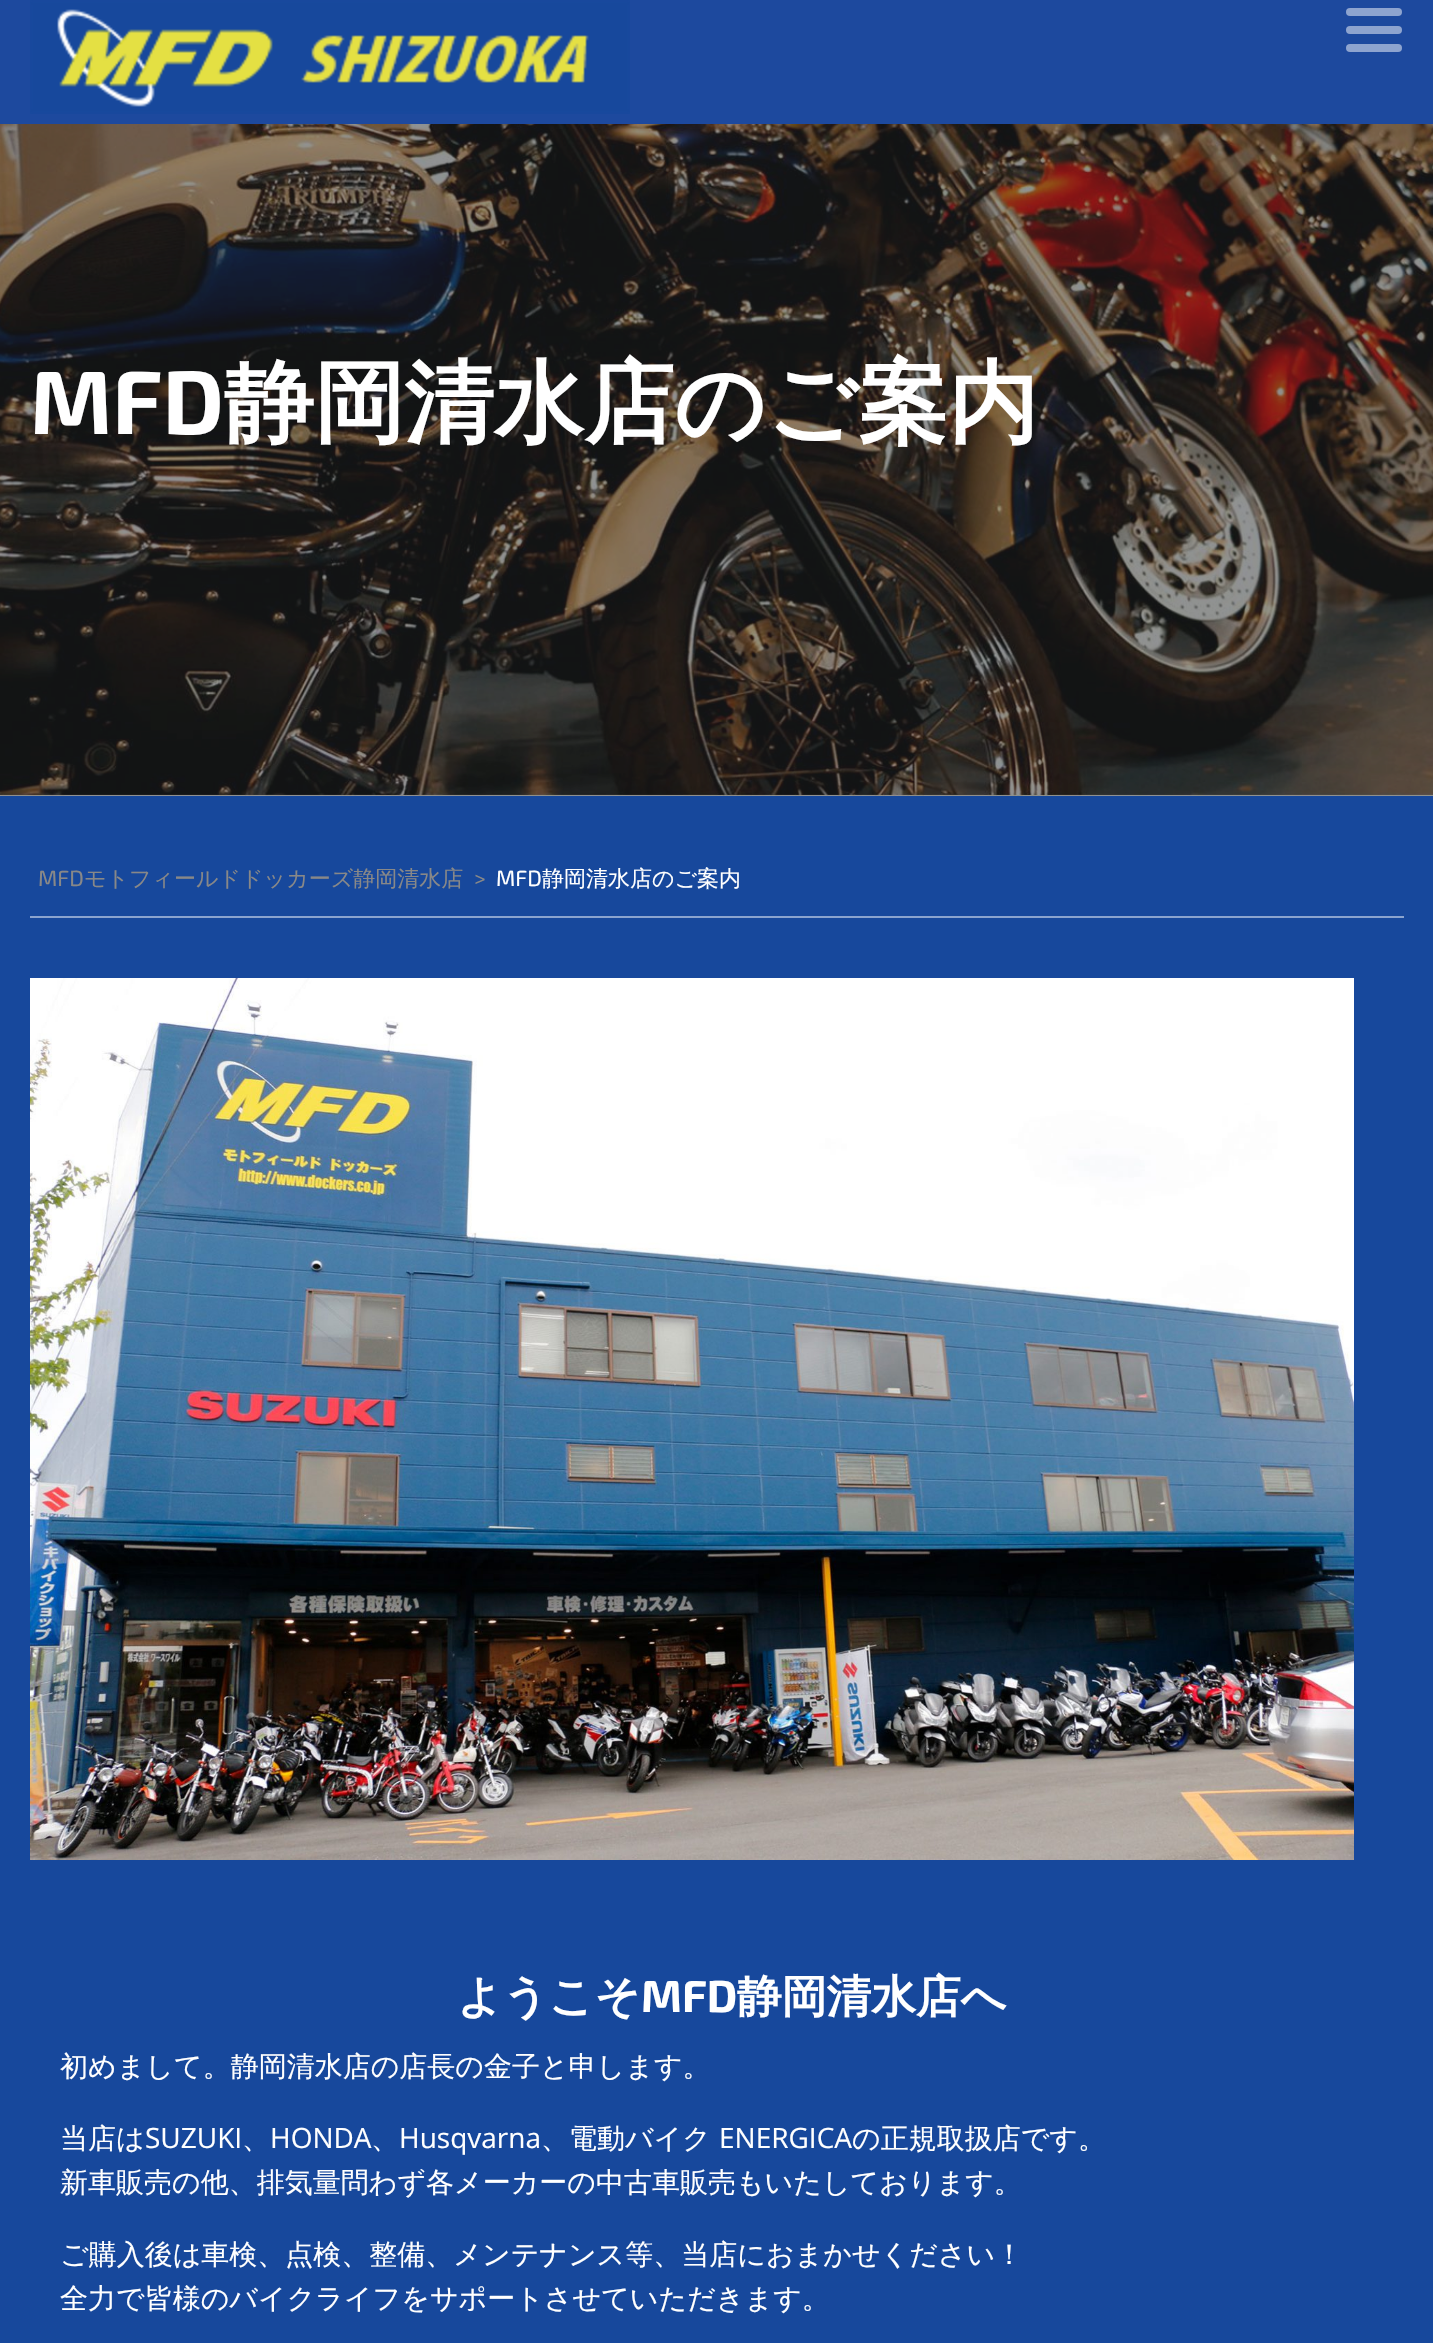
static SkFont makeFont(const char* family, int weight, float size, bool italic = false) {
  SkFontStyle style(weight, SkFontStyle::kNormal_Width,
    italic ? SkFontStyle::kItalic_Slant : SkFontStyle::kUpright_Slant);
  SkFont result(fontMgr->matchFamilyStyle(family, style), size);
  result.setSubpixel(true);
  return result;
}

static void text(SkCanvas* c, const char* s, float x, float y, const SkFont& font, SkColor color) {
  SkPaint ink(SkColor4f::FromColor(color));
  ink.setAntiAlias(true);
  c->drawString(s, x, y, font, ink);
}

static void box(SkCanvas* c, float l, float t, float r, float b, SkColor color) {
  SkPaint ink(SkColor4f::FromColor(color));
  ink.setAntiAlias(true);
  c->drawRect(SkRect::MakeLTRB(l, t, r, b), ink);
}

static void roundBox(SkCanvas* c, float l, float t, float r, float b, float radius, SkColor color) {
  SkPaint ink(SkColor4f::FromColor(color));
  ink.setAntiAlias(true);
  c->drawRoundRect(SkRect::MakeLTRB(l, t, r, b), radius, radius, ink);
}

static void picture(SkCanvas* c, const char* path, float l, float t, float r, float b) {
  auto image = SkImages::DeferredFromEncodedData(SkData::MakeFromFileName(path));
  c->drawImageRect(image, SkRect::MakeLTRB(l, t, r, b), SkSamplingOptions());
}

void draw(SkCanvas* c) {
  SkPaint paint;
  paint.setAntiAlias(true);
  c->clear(0xff17489c);
  box(c, 0, 0, 1433, 124, 0xff1d499e);
  picture(c, "img_01.png", 30, 0, 630, 114);
  roundBox(c, 1346, 8, 1402, 16, 4, 0xff8ea4cf);
  roundBox(c, 1346, 26, 1402, 34, 4, 0xff8ea4cf);
  roundBox(c, 1346, 44, 1402, 52, 4, 0xff8ea4cf);
  picture(c, "img_02.png", 0, 124, 1433, 796);
  SkFont face1 = makeFont("Exo 2", 700, 90);
  text(c, "MFD", 30, 434, face1, 0xffffffff);
  SkFont face2 = makeFont("WenQuanYi Zen Hei", 700, 90);
  text(c, "静岡清水店のご案内", 224, 434, face2, 0xffffffff);
  box(c, 30, 916, 1404, 918, 0xff8ba4ce);
  SkFont face3 = makeFont("Exo 2", 400, 22);
  text(c, "MFD", 38, 886, face3, 0xff888888);
  SkFont face4 = makeFont("WenQuanYi Zen Hei", 500, 22);
  text(c, "モトフィールドドッカーズ静岡清水店", 84, 886, face4, 0xff888888);
  text(c, ">", 474, 886, face3, 0xff888888);
  text(c, "MFD", 496, 886, face3, 0xffffffff);
  text(c, "静岡清水店のご案内", 542, 886, face4, 0xffffffff);
  picture(c, "img_03.png", 30, 978, 1354, 1860);
  SkFont face5 = makeFont("WenQuanYi Zen Hei", 700, 44.75f);
  text(c, "ようこそ", 457, 2012, face5, 0xffffffff);
  SkFont face6 = makeFont("Exo 2", 700, 44.75f);
  text(c, "MFD", 641, 2012, face6, 0xffffffff);
  text(c, "静岡清水店へ", 737, 2012, face5, 0xffffffff);
  SkFont face7 = makeFont("WenQuanYi Zen Hei", 500, 28);
  text(c, "初めまして。静岡清水店の店長の金子と申します。", 60, 2076, face7, 0xffffffff);
  text(c, "当店は", 60, 2148, face7, 0xffffffff);
  SkFont face8 = makeFont("Open Sans", 400, 28);
  text(c, "SUZUKI", 145, 2148, face8, 0xffffffff);
  text(c, "、", 242, 2148, face7, 0xffffffff);
  text(c, "HONDA", 270, 2148, face8, 0xffffffff);
  text(c, "、", 371, 2148, face7, 0xffffffff);
  text(c, "Husqvarna", 399, 2148, face8, 0xffffffff);
  text(c, "、電動バイク", 541, 2148, face7, 0xffffffff);
  text(c, "ENERGICA", 719, 2148, face8, 0xffffffff);
  text(c, "の正規取扱店です。", 852, 2148, face7, 0xffffffff);
  text(c, "新車販売の他、排気量問わず各メーカーの中古車販売もいたしております。", 60, 2192, face7, 0xffffffff);
  text(c, "ご購入後は車検、点検、整備、メンテナンス等、当店におまかせください！", 60, 2264, face7, 0xffffffff);
  text(c, "全力で皆様のバイクライフをサポートさせていただきます。", 60, 2308, face7, 0xffffffff);
}
